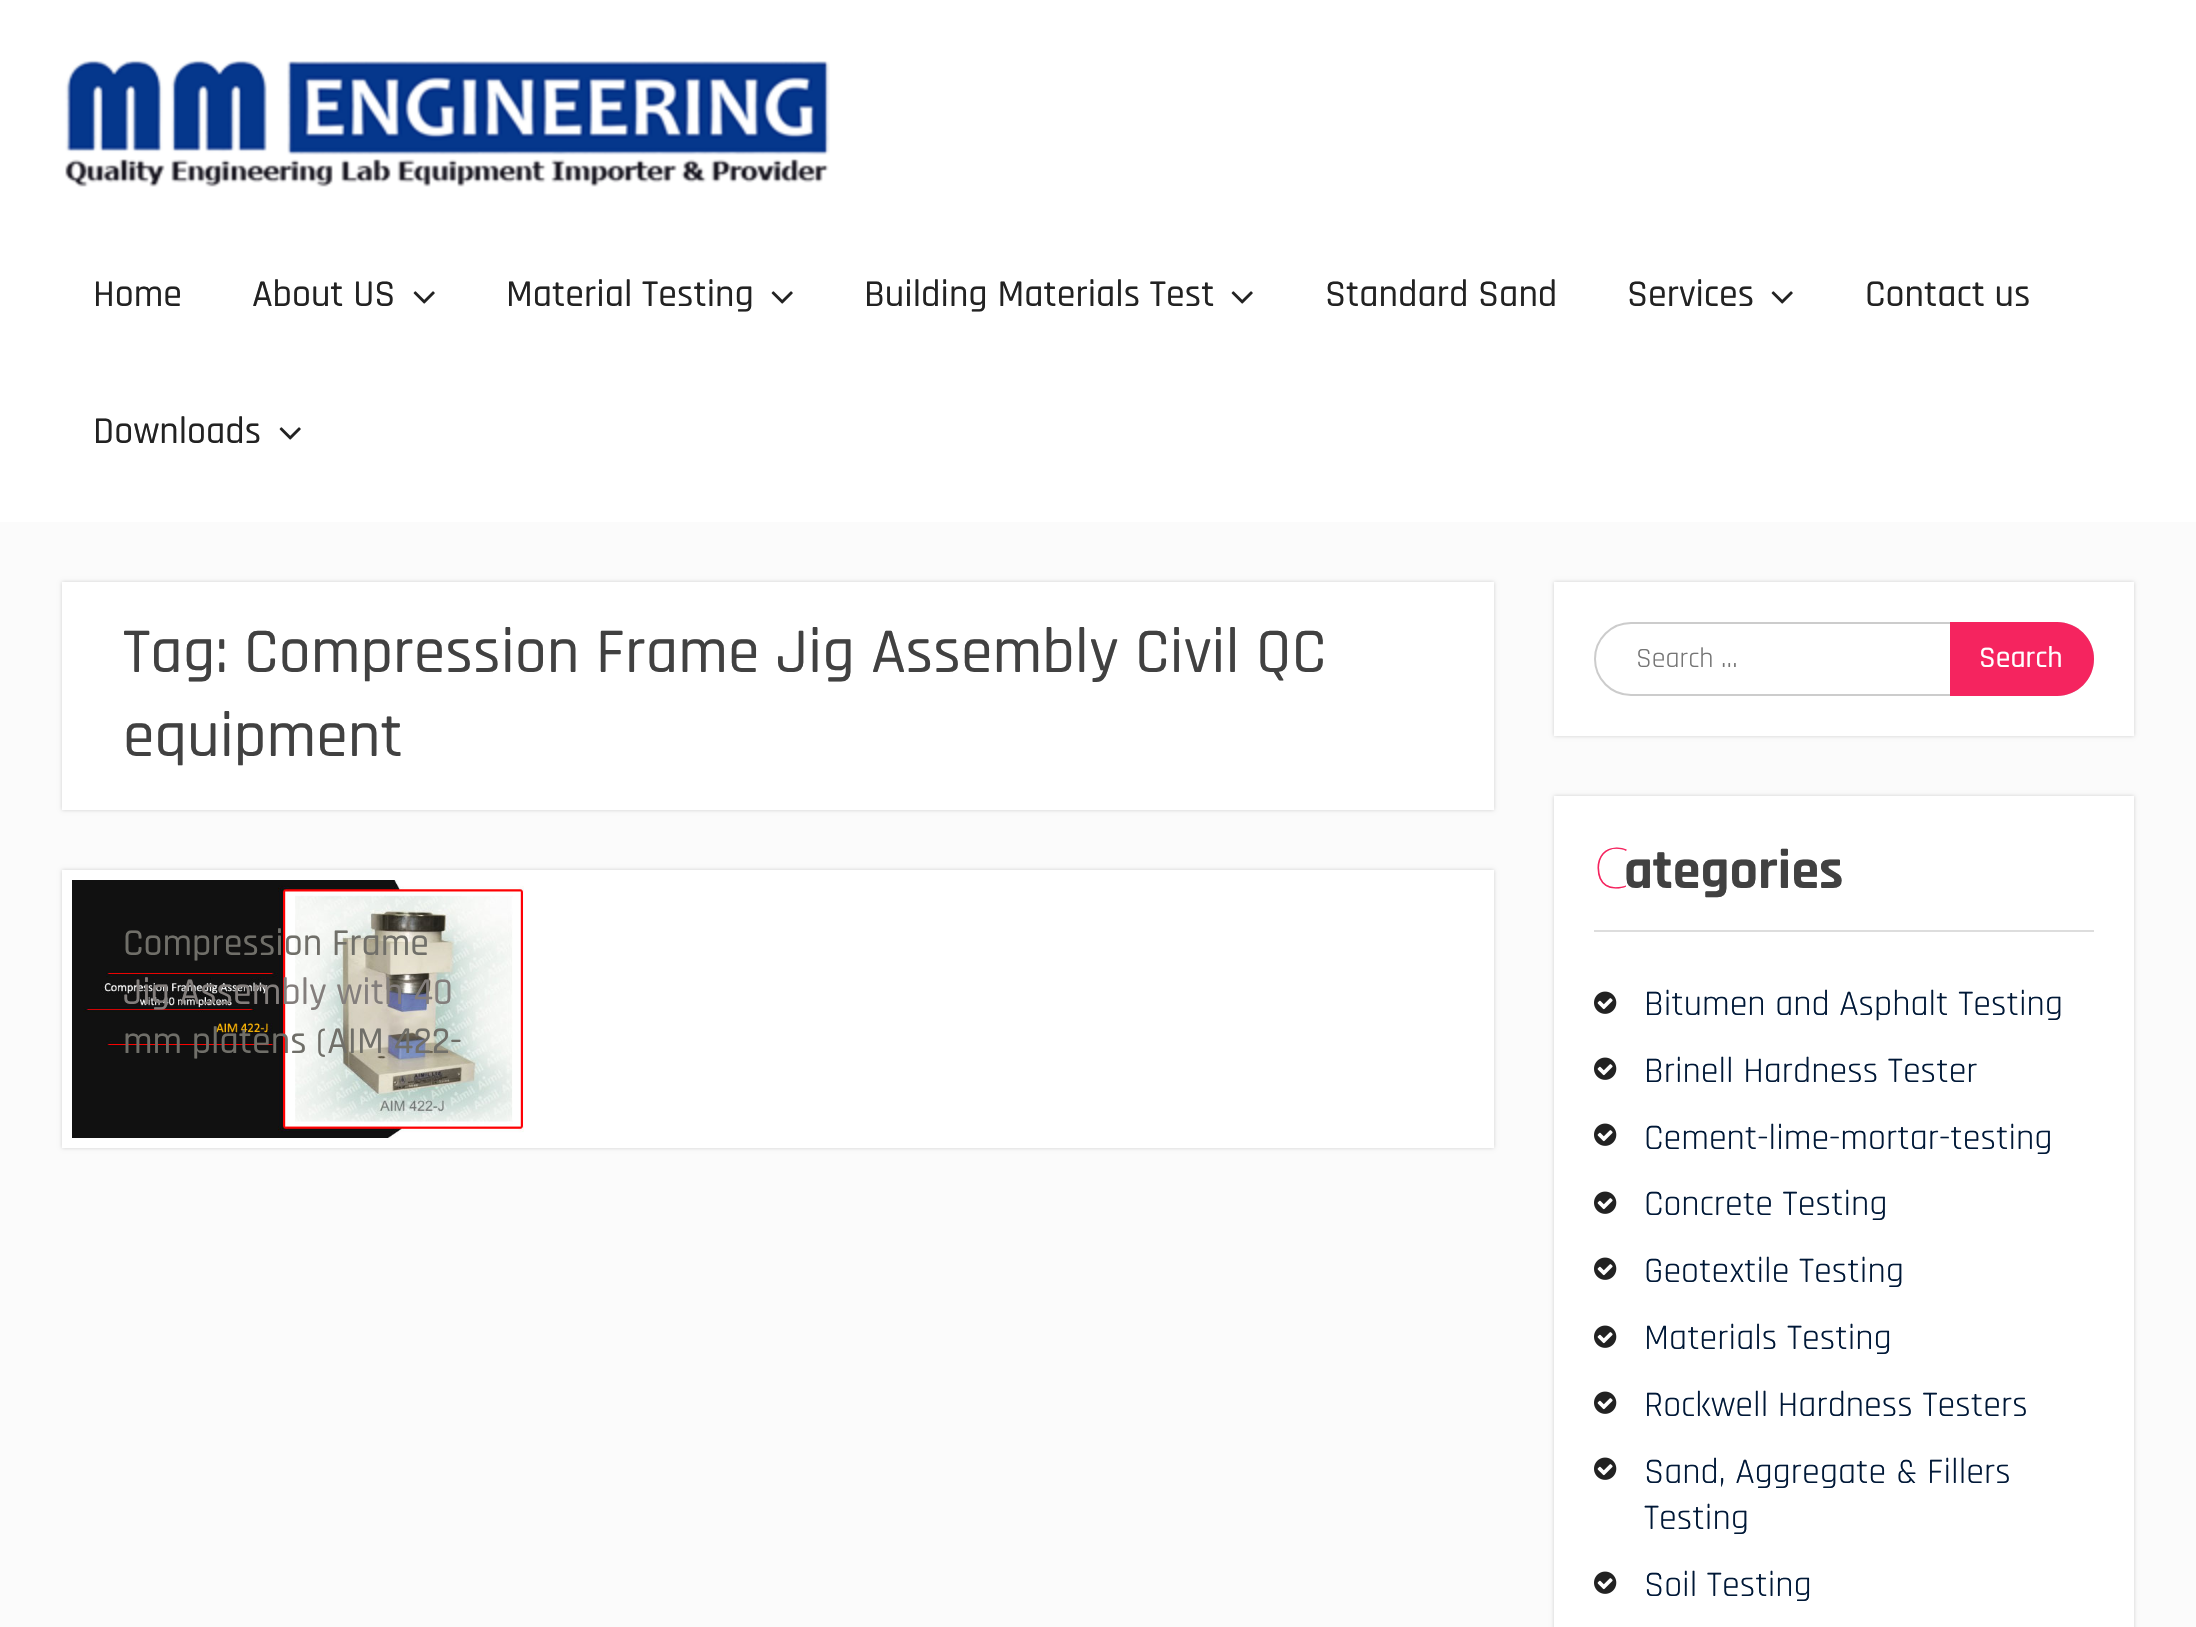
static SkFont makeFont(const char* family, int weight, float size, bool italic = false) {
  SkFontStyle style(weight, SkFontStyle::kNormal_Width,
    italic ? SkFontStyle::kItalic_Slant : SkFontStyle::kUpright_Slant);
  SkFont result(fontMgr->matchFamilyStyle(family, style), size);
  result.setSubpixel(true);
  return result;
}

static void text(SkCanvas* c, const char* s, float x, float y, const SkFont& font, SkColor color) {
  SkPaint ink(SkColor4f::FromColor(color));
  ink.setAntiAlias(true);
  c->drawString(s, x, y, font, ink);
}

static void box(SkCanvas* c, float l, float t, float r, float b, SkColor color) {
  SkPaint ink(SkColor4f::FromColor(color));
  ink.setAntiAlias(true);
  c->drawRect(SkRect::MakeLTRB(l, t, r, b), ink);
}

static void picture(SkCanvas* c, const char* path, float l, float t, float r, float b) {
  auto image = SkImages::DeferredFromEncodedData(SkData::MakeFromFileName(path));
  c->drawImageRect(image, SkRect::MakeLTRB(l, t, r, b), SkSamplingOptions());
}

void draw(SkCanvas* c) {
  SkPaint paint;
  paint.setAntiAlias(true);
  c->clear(0xfffbfbfb);
  box(c, 0, 0, 2196, 522, 0xffffffff);
  picture(c, "img_01.png", 65, 60, 830, 187);
  SkFont face1 = makeFont("Rajdhani", 500, 38);
  text(c, "Home", 93, 306, face1, 0xff222222);
  text(c, "About US", 252, 306, face1, 0xff222222);
  picture(c, "img_02.png", 413, 291, 435, 304);
  text(c, "Material Testing", 506, 306, face1, 0xff222222);
  picture(c, "img_02.png", 771, 291, 793, 304);
  text(c, "Building Materials Test", 864, 306, face1, 0xff222222);
  picture(c, "img_02.png", 1231, 291, 1253, 304);
  text(c, "Standard Sand", 1325, 306, face1, 0xff222222);
  text(c, "Services", 1627, 306, face1, 0xff222222);
  picture(c, "img_02.png", 1771, 291, 1793, 304);
  text(c, "Contact us", 1865, 306, face1, 0xff222222);
  text(c, "Downloads", 93, 443, face1, 0xff222222);
  picture(c, "img_02.png", 279, 427, 301, 440);
  paint.setColor(0xffcfcfcf);
  paint.setMaskFilter(SkMaskFilter::MakeBlur(kNormal_SkBlurStyle, 2));
  c->drawRect(SkRect::MakeLTRB(62, 582, 1494, 810), paint);
  paint.setMaskFilter(nullptr);
  box(c, 62, 582, 1494, 810, 0xffffffff);
  SkFont face2 = makeFont("Rajdhani", 500, 64);
  text(c, "Tag: Compression Frame Jig Assembly Civil QC", 123, 672, face2, 0xff414141);
  text(c, "equipment", 123, 756, face2, 0xff414141);
  paint.setMaskFilter(SkMaskFilter::MakeBlur(kNormal_SkBlurStyle, 2));
  c->drawRect(SkRect::MakeLTRB(62, 870, 1494, 1148), paint);
  paint.setMaskFilter(nullptr);
  box(c, 62, 870, 1494, 1148, 0xffffffff);
  picture(c, "img_03.png", 72, 880, 524, 1138);
  text(c, "Compression Frame", 123, 955, face1, 0xff706f69);
  text(c, "Jig Assembly with 40", 123, 1004, face1, 0xff837e7c);
  text(c, "mm platens (AIM 422-", 123, 1053, face1, 0xff706f69);
  paint.setMaskFilter(SkMaskFilter::MakeBlur(kNormal_SkBlurStyle, 2));
  c->drawRect(SkRect::MakeLTRB(1554, 582, 2134, 736), paint);
  paint.setMaskFilter(nullptr);
  box(c, 1554, 582, 2134, 736, 0xffffffff);
  paint.setStyle(SkPaint::kStroke_Style);
  paint.setStrokeWidth(2);
  paint.setColor(0xffcccccc);
  c->drawRoundRect(SkRect::MakeLTRB(1595, 623, 2093, 695), 36, 36, paint);
  SkFont face3 = makeFont("Rajdhani", 400, 28);
  text(c, "Search …", 1636, 667, face3, 0xff757575);
  paint.setStyle(SkPaint::kFill_Style);
  paint.setColor(0xfff5245f);
  c->drawPath(SkPathBuilder().moveTo(1950, 622).lineTo(2057, 622).cubicTo(2077.5f, 622, 2094, 638.5f, 2094, 659).cubicTo(2094, 679.5f, 2077.5f, 696, 2057, 696).lineTo(1950, 696).close().detach(), paint);
  SkFont face4 = makeFont("Rajdhani", 500, 30);
  text(c, "Search", 1979, 667, face4, 0xffffffff);
  paint.setColor(0xffcfcfcf);
  paint.setMaskFilter(SkMaskFilter::MakeBlur(kNormal_SkBlurStyle, 2));
  c->drawRect(SkRect::MakeLTRB(1554, 796, 2134, 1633), paint);
  paint.setMaskFilter(nullptr);
  box(c, 1554, 796, 2134, 1627, 0xffffffff);
  box(c, 1594, 930, 2094, 932, 0xffdddddd);
  SkFont face5 = makeFont("Noto Sans", 100, 56);
  text(c, "C", 1594, 888, face5, 0xfff5245f);
  SkFont face6 = makeFont("Rajdhani", 700, 56);
  text(c, "ategories", 1624, 888, face6, 0xff414141);
  picture(c, "img_04.png", 1594, 991, 1617, 1014);
  SkFont face7 = makeFont("Rajdhani", 400, 36);
  text(c, "Bitumen and Asphalt Testing", 1644, 1015, face7, 0xff001837);
  picture(c, "img_04.png", 1594, 1057, 1617, 1080);
  text(c, "Brinell Hardness Tester", 1644, 1082, face7, 0xff001837);
  picture(c, "img_04.png", 1594, 1123, 1617, 1146);
  text(c, "Cement-lime-mortar-testing", 1644, 1149, face7, 0xff001837);
  picture(c, "img_04.png", 1594, 1191, 1617, 1214);
  text(c, "Concrete Testing", 1644, 1215, face7, 0xff001837);
  picture(c, "img_04.png", 1594, 1257, 1617, 1280);
  text(c, "Geotextile Testing", 1644, 1282, face7, 0xff001837);
  picture(c, "img_04.png", 1594, 1325, 1617, 1348);
  text(c, "Materials Testing", 1644, 1349, face7, 0xff001837);
  picture(c, "img_04.png", 1594, 1391, 1617, 1414);
  text(c, "Rockwell Hardness Testers", 1644, 1416, face7, 0xff001837);
  picture(c, "img_04.png", 1594, 1457, 1617, 1480);
  text(c, "Sand, Aggregate & Fillers", 1644, 1483, face7, 0xff001837);
  text(c, "Testing", 1644, 1529, face7, 0xff001837);
  picture(c, "img_04.png", 1594, 1571, 1617, 1594);
  text(c, "Soil Testing", 1644, 1596, face7, 0xff001837);
}
